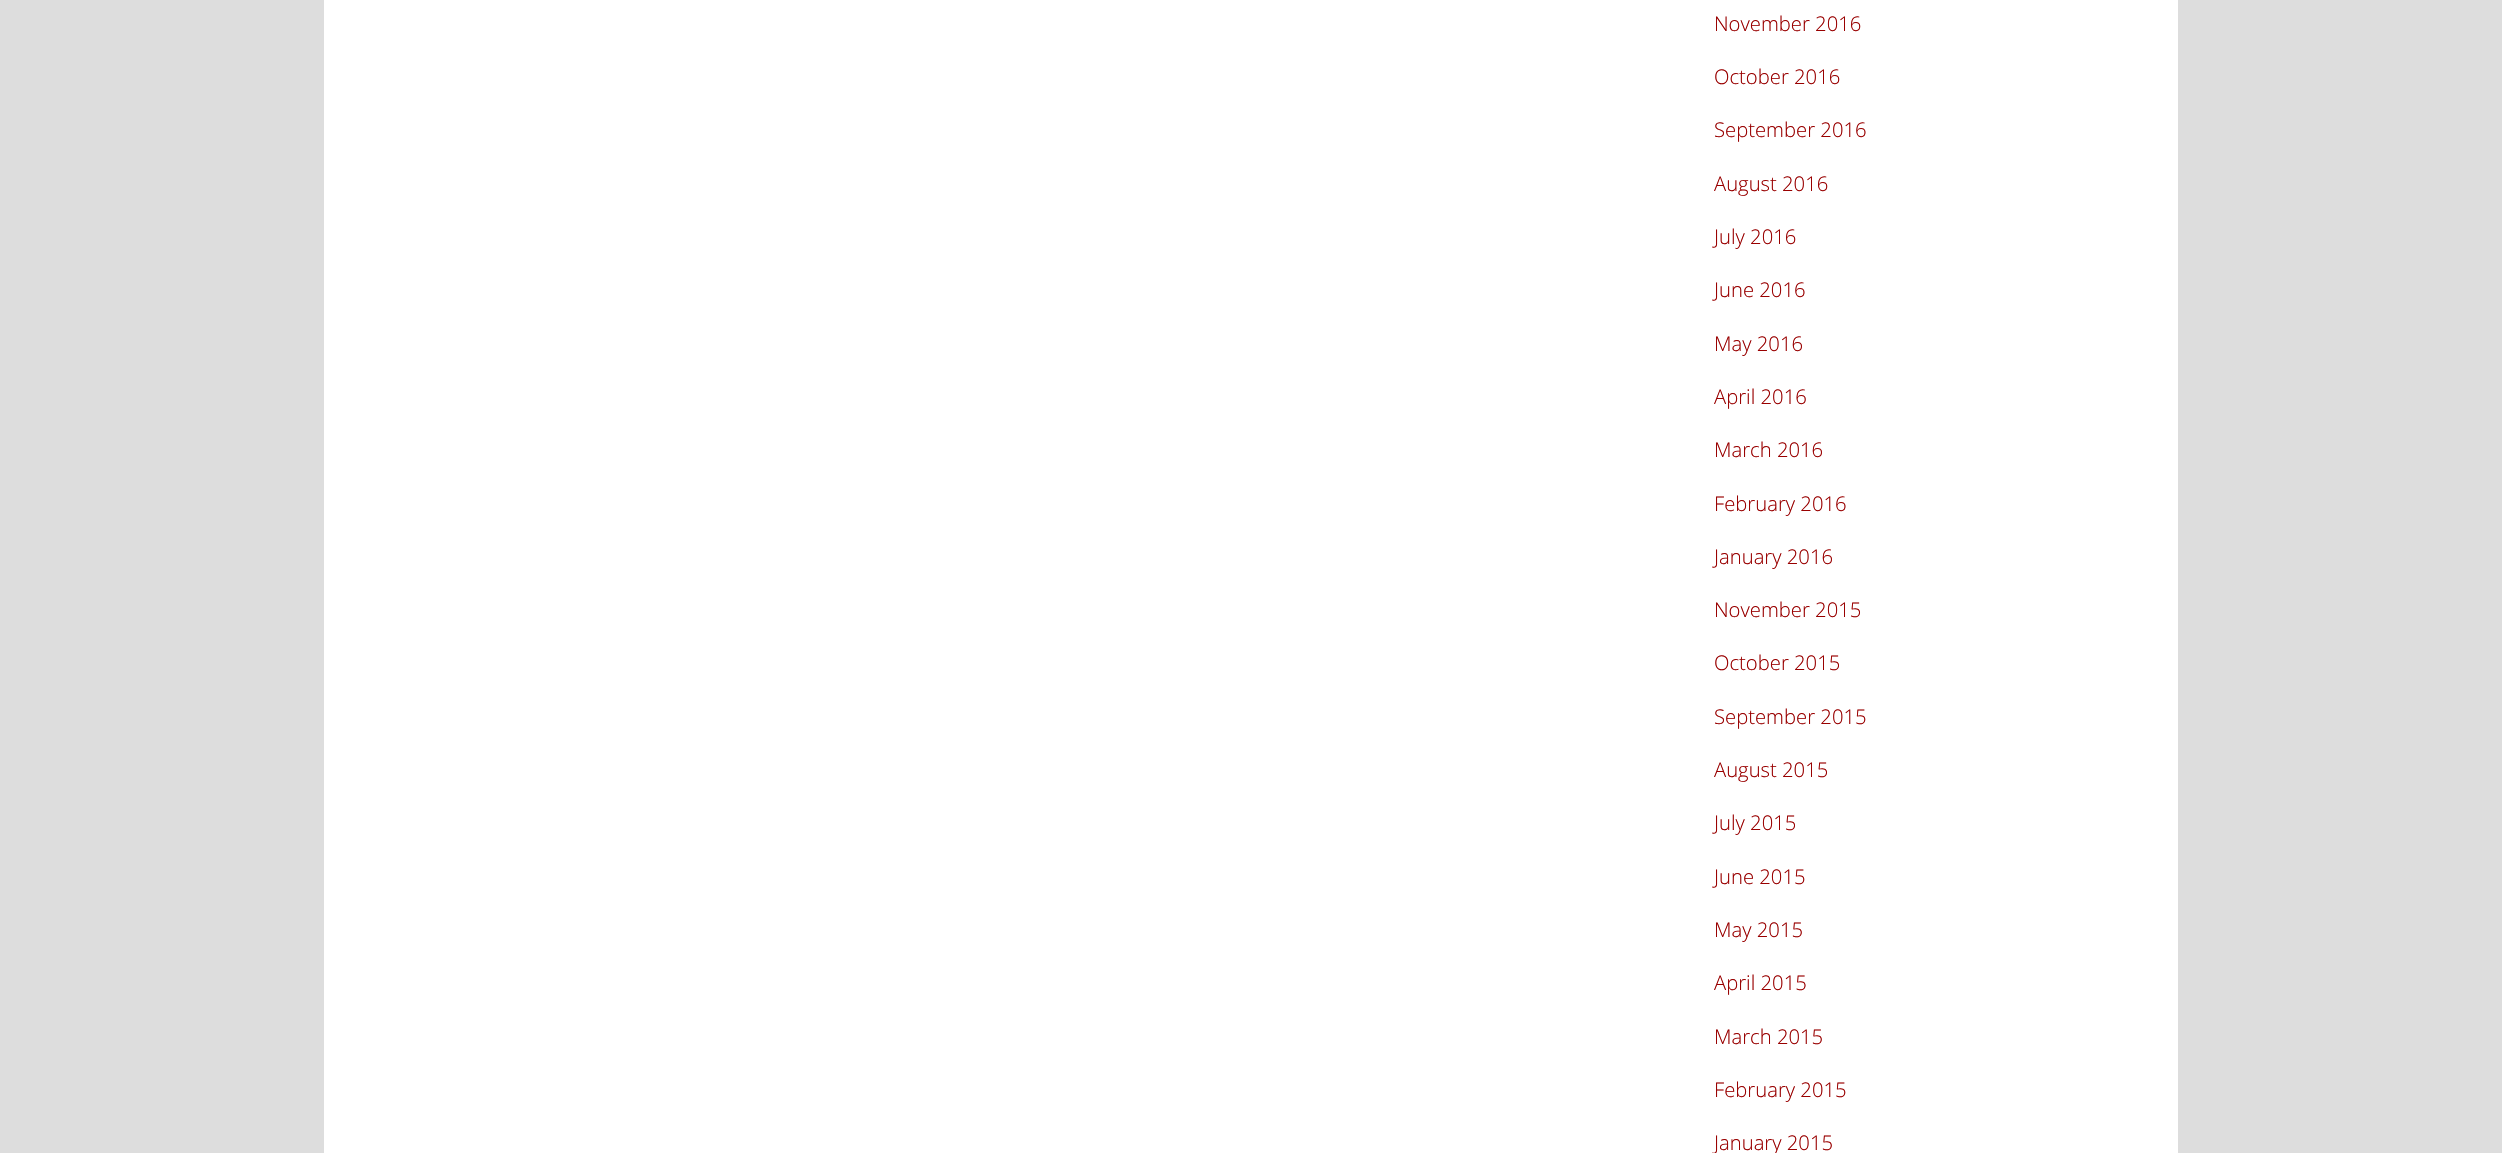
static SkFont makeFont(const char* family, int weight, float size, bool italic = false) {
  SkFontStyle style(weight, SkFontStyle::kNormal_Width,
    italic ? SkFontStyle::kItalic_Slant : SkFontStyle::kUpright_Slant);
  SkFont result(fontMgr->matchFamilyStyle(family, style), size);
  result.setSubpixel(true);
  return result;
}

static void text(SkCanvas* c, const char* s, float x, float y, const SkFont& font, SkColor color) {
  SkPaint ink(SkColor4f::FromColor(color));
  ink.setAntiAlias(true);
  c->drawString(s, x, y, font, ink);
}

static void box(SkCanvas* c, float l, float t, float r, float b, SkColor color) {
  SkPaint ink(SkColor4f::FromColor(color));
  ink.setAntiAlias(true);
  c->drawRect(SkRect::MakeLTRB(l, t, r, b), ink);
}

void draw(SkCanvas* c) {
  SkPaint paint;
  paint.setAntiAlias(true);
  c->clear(0xffdddddd);
  box(c, 324, 0, 2178, 1153, 0xffffffff);
  SkFont face1 = makeFont("Open Sans", 300, 20.25f);
  text(c, "November 2016", 1714, 31, face1, 0xff990000);
  text(c, "October 2016", 1714, 84, face1, 0xff990000);
  text(c, "September 2016", 1714, 137, face1, 0xff990000);
  text(c, "August 2016", 1714, 191, face1, 0xff990000);
  text(c, "July 2016", 1714, 244, face1, 0xff990000);
  text(c, "June 2016", 1714, 297, face1, 0xff990000);
  text(c, "May 2016", 1714, 351, face1, 0xff990000);
  text(c, "April 2016", 1714, 404, face1, 0xff990000);
  text(c, "March 2016", 1714, 457, face1, 0xff990000);
  text(c, "February 2016", 1714, 511, face1, 0xff990000);
  text(c, "January 2016", 1714, 564, face1, 0xff990000);
  text(c, "November 2015", 1714, 617, face1, 0xff990000);
  text(c, "October 2015", 1714, 670, face1, 0xff990000);
  text(c, "September 2015", 1714, 724, face1, 0xff990000);
  text(c, "August 2015", 1714, 777, face1, 0xff990000);
  text(c, "July 2015", 1714, 830, face1, 0xff990000);
  text(c, "June 2015", 1714, 884, face1, 0xff990000);
  text(c, "May 2015", 1714, 937, face1, 0xff990000);
  text(c, "April 2015", 1714, 990, face1, 0xff990000);
  text(c, "March 2015", 1714, 1044, face1, 0xff990000);
  text(c, "February 2015", 1714, 1097, face1, 0xff990000);
  text(c, "January 2015", 1714, 1150, face1, 0xff990000);
}
